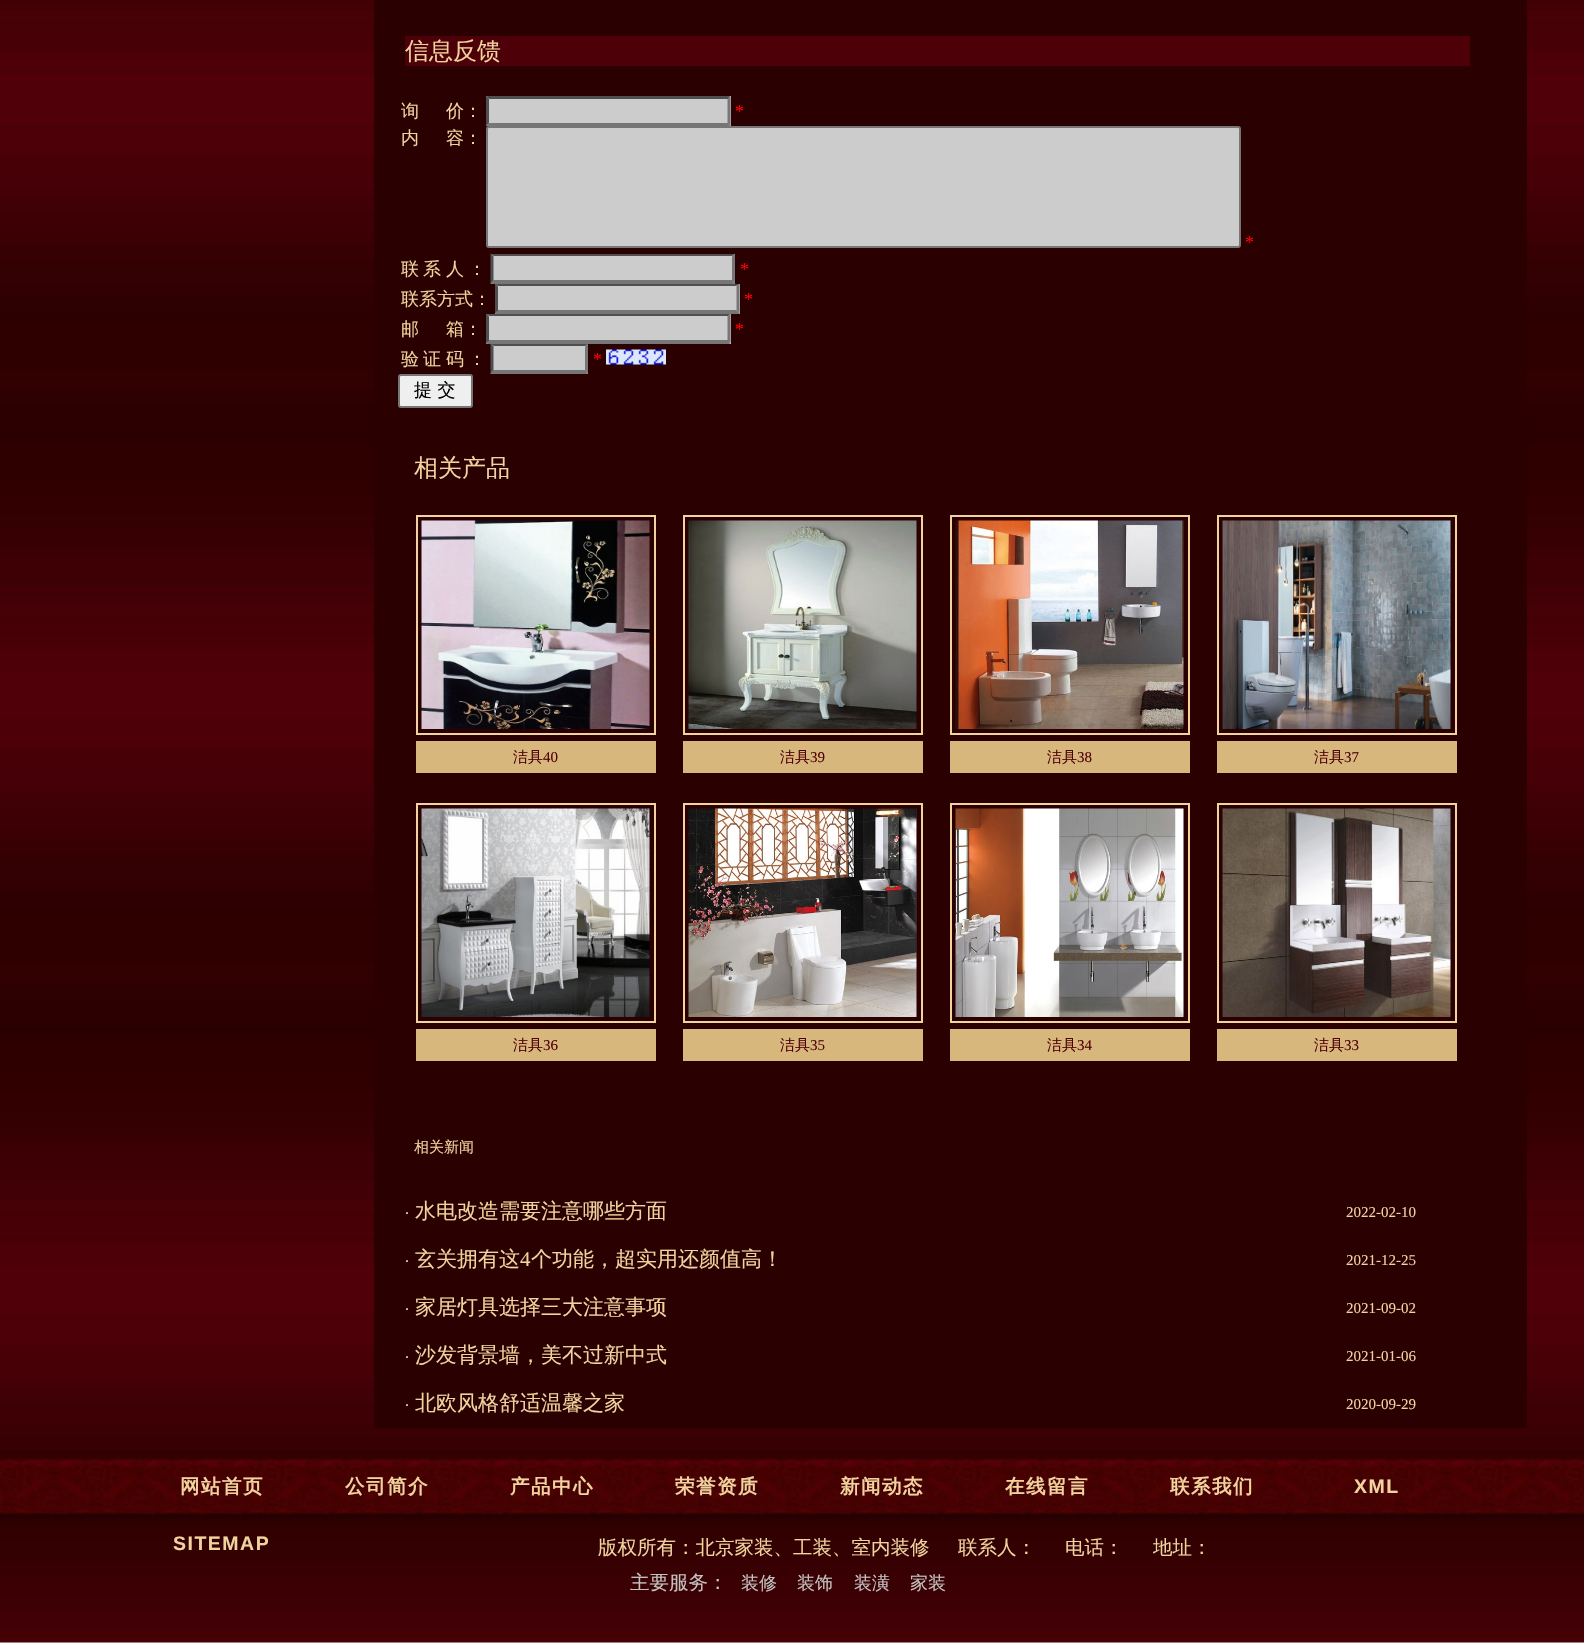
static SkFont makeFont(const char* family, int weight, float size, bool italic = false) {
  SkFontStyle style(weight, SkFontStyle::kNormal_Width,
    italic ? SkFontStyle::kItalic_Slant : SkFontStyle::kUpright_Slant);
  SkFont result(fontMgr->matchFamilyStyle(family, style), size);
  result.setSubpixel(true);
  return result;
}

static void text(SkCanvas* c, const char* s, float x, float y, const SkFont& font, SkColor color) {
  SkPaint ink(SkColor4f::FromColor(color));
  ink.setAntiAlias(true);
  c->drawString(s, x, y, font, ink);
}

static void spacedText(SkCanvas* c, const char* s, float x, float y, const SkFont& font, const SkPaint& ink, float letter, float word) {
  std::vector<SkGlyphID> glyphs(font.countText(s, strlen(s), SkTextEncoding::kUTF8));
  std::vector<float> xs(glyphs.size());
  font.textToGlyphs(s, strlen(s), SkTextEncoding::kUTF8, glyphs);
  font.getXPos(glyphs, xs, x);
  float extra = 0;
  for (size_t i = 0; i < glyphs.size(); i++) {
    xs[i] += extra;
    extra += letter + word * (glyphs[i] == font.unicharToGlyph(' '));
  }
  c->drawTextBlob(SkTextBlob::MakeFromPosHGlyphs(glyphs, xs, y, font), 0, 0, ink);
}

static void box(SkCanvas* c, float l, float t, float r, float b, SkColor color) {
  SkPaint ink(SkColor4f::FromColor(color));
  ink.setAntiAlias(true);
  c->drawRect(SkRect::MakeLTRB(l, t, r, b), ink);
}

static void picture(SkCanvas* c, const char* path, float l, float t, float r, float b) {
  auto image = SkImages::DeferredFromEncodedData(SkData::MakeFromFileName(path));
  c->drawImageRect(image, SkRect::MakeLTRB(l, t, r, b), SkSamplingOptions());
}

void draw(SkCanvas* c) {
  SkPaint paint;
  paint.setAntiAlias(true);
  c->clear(0xffffffff);
  picture(c, "img_01.png", 0, 0, 1584, 1458);
  box(c, 374, 0, 1527, 1428, 0xff2a0001);
  box(c, 405, 36, 1470, 66, 0xff4d0008);
  SkFont face1 = makeFont("WenQuanYi Zen Hei", 500, 24);
  text(c, "信息反馈", 405, 59, face1, 0xfff1d39d);
  SkFont face2 = makeFont("WenQuanYi Zen Hei", 500, 18);
  text(c, "询", 401, 117, face2, 0xfff1d39d);
  text(c, "价：", 446, 117, face2, 0xfff1d39d);
  box(c, 486, 96, 731, 126, 0xffcccccc);
  paint.setColor(0xff4f4f4f);
  c->drawPath(SkPathBuilder().moveTo(486, 96).lineTo(730, 96).lineTo(728, 99).lineTo(489, 99).close().detach(), paint);
  paint.setColor(0xff767676);
  c->drawPath(SkPathBuilder().moveTo(730.5f, 96).lineTo(730.5f, 126).lineTo(727.5f, 123).lineTo(727.5f, 99).close().detach(), paint);
  c->drawPath(SkPathBuilder().moveTo(730, 126).lineTo(486, 126).lineTo(489, 123).lineTo(728, 123).close().detach(), paint);
  paint.setColor(0xff4f4f4f);
  c->drawPath(SkPathBuilder().moveTo(486, 126).lineTo(486, 96).lineTo(489, 99).lineTo(489, 123).close().detach(), paint);
  SkFont face3 = makeFont("Liberation Serif", 400, 18);
  text(c, "*", 735, 117, face3, 0xffff0000);
  text(c, "内", 401, 144, face2, 0xfff1d39d);
  text(c, "容：", 446, 144, face2, 0xfff1d39d);
  paint.setColor(0xffcccccc);
  c->drawRoundRect(SkRect::MakeLTRB(487, 127, 1240, 247), 2, 2, paint);
  paint.setStyle(SkPaint::kStroke_Style);
  paint.setStrokeWidth(2);
  paint.setColor(0xff767676);
  c->drawRoundRect(SkRect::MakeLTRB(487, 127, 1240, 247), 2, 2, paint);
  text(c, "*", 1245, 248, face3, 0xffff0000);
  text(c, "联", 401, 275, face2, 0xfff1d39d);
  text(c, "系", 423, 275, face2, 0xfff1d39d);
  text(c, "人", 446, 275, face2, 0xfff1d39d);
  text(c, "：", 468, 275, face2, 0xfff1d39d);
  box(c, 491, 254, 735, 284, 0xffcccccc);
  paint.setStyle(SkPaint::kFill_Style);
  paint.setColor(0xff4f4f4f);
  c->drawPath(SkPathBuilder().moveTo(490, 254).lineTo(735, 254).lineTo(732, 256).lineTo(494, 256).close().detach(), paint);
  paint.setColor(0xff767676);
  c->drawPath(SkPathBuilder().moveTo(735, 253.5f).lineTo(735, 283.5f).lineTo(732, 280.5f).lineTo(732, 256.5f).close().detach(), paint);
  c->drawPath(SkPathBuilder().moveTo(735, 284).lineTo(490, 284).lineTo(494, 280).lineTo(732, 280).close().detach(), paint);
  paint.setColor(0xff4f4f4f);
  c->drawPath(SkPathBuilder().moveTo(490.5f, 283.5f).lineTo(490.5f, 253.5f).lineTo(493.5f, 256.5f).lineTo(493.5f, 280.5f).close().detach(), paint);
  text(c, "*", 740, 275, face3, 0xffff0000);
  text(c, "联系方式：", 401, 305, face2, 0xfff1d39d);
  box(c, 495, 284, 740, 314, 0xffcccccc);
  c->drawPath(SkPathBuilder().moveTo(495, 284).lineTo(740, 284).lineTo(736, 286).lineTo(498, 286).close().detach(), paint);
  paint.setColor(0xff767676);
  c->drawPath(SkPathBuilder().moveTo(739.5f, 283.5f).lineTo(739.5f, 313.5f).lineTo(736.5f, 310.5f).lineTo(736.5f, 286.5f).close().detach(), paint);
  c->drawPath(SkPathBuilder().moveTo(740, 314).lineTo(495, 314).lineTo(498, 310).lineTo(736, 310).close().detach(), paint);
  paint.setColor(0xff4f4f4f);
  c->drawPath(SkPathBuilder().moveTo(495, 313.5f).lineTo(495, 283.5f).lineTo(498, 286.5f).lineTo(498, 310.5f).close().detach(), paint);
  text(c, "*", 744, 305, face3, 0xffff0000);
  text(c, "邮", 401, 335, face2, 0xfff1d39d);
  text(c, "箱：", 446, 335, face2, 0xfff1d39d);
  box(c, 486, 314, 731, 344, 0xffcccccc);
  c->drawPath(SkPathBuilder().moveTo(486, 314).lineTo(730, 314).lineTo(728, 316).lineTo(489, 316).close().detach(), paint);
  paint.setColor(0xff767676);
  c->drawPath(SkPathBuilder().moveTo(730.5f, 313.5f).lineTo(730.5f, 343.5f).lineTo(727.5f, 340.5f).lineTo(727.5f, 316.5f).close().detach(), paint);
  c->drawPath(SkPathBuilder().moveTo(730, 344).lineTo(486, 344).lineTo(489, 340).lineTo(728, 340).close().detach(), paint);
  paint.setColor(0xff4f4f4f);
  c->drawPath(SkPathBuilder().moveTo(486, 343.5f).lineTo(486, 313.5f).lineTo(489, 316.5f).lineTo(489, 340.5f).close().detach(), paint);
  text(c, "*", 735, 335, face3, 0xffff0000);
  text(c, "验", 401, 365, face2, 0xfff1d39d);
  text(c, "证", 423, 365, face2, 0xfff1d39d);
  text(c, "码", 446, 365, face2, 0xfff1d39d);
  text(c, "：", 468, 365, face2, 0xfff1d39d);
  box(c, 491, 344, 588, 374, 0xffcccccc);
  c->drawPath(SkPathBuilder().moveTo(490, 344).lineTo(588, 344).lineTo(585, 346).lineTo(494, 346).close().detach(), paint);
  paint.setColor(0xff767676);
  c->drawPath(SkPathBuilder().moveTo(588, 343.5f).lineTo(588, 373.5f).lineTo(585, 370.5f).lineTo(585, 346.5f).close().detach(), paint);
  c->drawPath(SkPathBuilder().moveTo(588, 374).lineTo(490, 374).lineTo(494, 370).lineTo(585, 370).close().detach(), paint);
  paint.setColor(0xff4f4f4f);
  c->drawPath(SkPathBuilder().moveTo(490.5f, 373.5f).lineTo(490.5f, 343.5f).lineTo(493.5f, 346.5f).lineTo(493.5f, 370.5f).close().detach(), paint);
  text(c, "*", 593, 365, face3, 0xffff0000);
  picture(c, "img_02.png", 606, 349, 666, 365);
  paint.setColor(0xffefefef);
  c->drawRoundRect(SkRect::MakeLTRB(399, 375, 472, 407), 2, 2, paint);
  paint.setStyle(SkPaint::kStroke_Style);
  paint.setColor(0xff767676);
  c->drawRoundRect(SkRect::MakeLTRB(399, 375, 472, 407), 2, 2, paint);
  text(c, "提 交", 414, 396, face2, 0xff000000);
  text(c, "相关产品", 414, 476, face1, 0xfff1d39d);
  paint.setColor(0xfff1d39d);
  c->drawRect(SkRect::MakeLTRB(417, 516, 655, 734), paint);
  picture(c, "img_03.png", 421, 520, 650, 729);
  box(c, 416, 741, 656, 773, 0xffd7b77c);
  SkFont face4 = makeFont("WenQuanYi Zen Hei", 500, 15);
  text(c, "洁具", 513, 762, face4, 0xff500009);
  SkFont face5 = makeFont("Liberation Serif", 400, 15);
  text(c, "40", 543, 762, face5, 0xff500009);
  c->drawRect(SkRect::MakeLTRB(684, 516, 922, 734), paint);
  picture(c, "img_04.png", 688, 520, 917, 729);
  box(c, 683, 741, 923, 773, 0xffd7b77c);
  text(c, "洁具", 780, 762, face4, 0xff500009);
  text(c, "39", 810, 762, face5, 0xff500009);
  c->drawRect(SkRect::MakeLTRB(951, 516, 1189, 734), paint);
  picture(c, "img_05.png", 955, 520, 1184, 729);
  box(c, 950, 741, 1190, 773, 0xffd7b77c);
  text(c, "洁具", 1047, 762, face4, 0xff500009);
  text(c, "38", 1077, 762, face5, 0xff500009);
  c->drawRect(SkRect::MakeLTRB(1218, 516, 1456, 734), paint);
  picture(c, "img_06.png", 1222, 520, 1451, 729);
  box(c, 1217, 741, 1457, 773, 0xffd7b77c);
  text(c, "洁具", 1314, 762, face4, 0xff500009);
  text(c, "37", 1344, 762, face5, 0xff500009);
  c->drawRect(SkRect::MakeLTRB(417, 804, 655, 1022), paint);
  picture(c, "img_07.png", 421, 808, 650, 1017);
  box(c, 416, 1029, 656, 1061, 0xffd7b77c);
  text(c, "洁具", 513, 1050, face4, 0xff500009);
  text(c, "36", 543, 1050, face5, 0xff500009);
  c->drawRect(SkRect::MakeLTRB(684, 804, 922, 1022), paint);
  picture(c, "img_08.png", 688, 808, 917, 1017);
  box(c, 683, 1029, 923, 1061, 0xffd7b77c);
  text(c, "洁具", 780, 1050, face4, 0xff500009);
  text(c, "35", 810, 1050, face5, 0xff500009);
  c->drawRect(SkRect::MakeLTRB(951, 804, 1189, 1022), paint);
  picture(c, "img_09.png", 955, 808, 1184, 1017);
  box(c, 950, 1029, 1190, 1061, 0xffd7b77c);
  text(c, "洁具", 1047, 1050, face4, 0xff500009);
  text(c, "34", 1077, 1050, face5, 0xff500009);
  c->drawRect(SkRect::MakeLTRB(1218, 804, 1456, 1022), paint);
  picture(c, "img_10.png", 1222, 808, 1451, 1017);
  box(c, 1217, 1029, 1457, 1061, 0xffd7b77c);
  text(c, "洁具", 1314, 1050, face4, 0xff500009);
  text(c, "33", 1344, 1050, face5, 0xff500009);
  text(c, "相关新闻", 414, 1152, face4, 0xfff1d39d);
  SkFont face6 = makeFont("Liberation Sans", 400, 18);
  text(c, "·", 404, 1218, face6, 0xfff1d39d);
  SkFont face7 = makeFont("WenQuanYi Zen Hei", 500, 21);
  text(c, "水电改造需要注意哪些方面", 415, 1218, face7, 0xfff1d39d);
  text(c, "2022-02-10", 1346, 1217, face5, 0xfff1d39d);
  text(c, "·", 404, 1266, face6, 0xfff1d39d);
  text(c, "玄关拥有这", 415, 1266, face7, 0xfff1d39d);
  SkFont face8 = makeFont("Liberation Serif", 400, 21);
  text(c, "4", 520, 1266, face8, 0xfff1d39d);
  text(c, "个功能，超实用还颜值高！", 531, 1266, face7, 0xfff1d39d);
  text(c, "2021-12-25", 1346, 1265, face5, 0xfff1d39d);
  text(c, "·", 404, 1314, face6, 0xfff1d39d);
  text(c, "家居灯具选择三大注意事项", 415, 1314, face7, 0xfff1d39d);
  text(c, "2021-09-02", 1346, 1313, face5, 0xfff1d39d);
  text(c, "·", 404, 1362, face6, 0xfff1d39d);
  text(c, "沙发背景墙，美不过新中式", 415, 1362, face7, 0xfff1d39d);
  text(c, "2021-01-06", 1346, 1361, face5, 0xfff1d39d);
  text(c, "·", 404, 1410, face6, 0xfff1d39d);
  text(c, "北欧风格舒适温馨之家", 415, 1410, face7, 0xfff1d39d);
  text(c, "2020-09-29", 1346, 1409, face5, 0xfff1d39d);
  picture(c, "img_11.png", 0, 1458, 1584, 1515);
  SkFont face9 = makeFont("WenQuanYi Zen Hei", 700, 19.5f);
  paint.setStyle(SkPaint::kFill_Style);
  spacedText(c, "网站首页", 180, 1493, face9, paint, 1.5f, 0);
  spacedText(c, "公司简介", 345, 1493, face9, paint, 1.5f, 0);
  spacedText(c, "产品中心", 510, 1493, face9, paint, 1.5f, 0);
  spacedText(c, "荣誉资质", 675, 1493, face9, paint, 1.5f, 0);
  spacedText(c, "新闻动态", 840, 1493, face9, paint, 1.5f, 0);
  spacedText(c, "在线留言", 1005, 1493, face9, paint, 1.5f, 0);
  spacedText(c, "联系我们", 1170, 1493, face9, paint, 1.5f, 0);
  SkFont face10 = makeFont("Liberation Sans", 700, 19.5f);
  spacedText(c, "XML", 1354, 1493, face10, paint, 1.5f, 0);
  picture(c, "img_12.png", 0, 1515, 1584, 1643);
  spacedText(c, "SITEMAP", 173, 1550, face10, paint, 1.5f, 0);
  SkFont face11 = makeFont("WenQuanYi Zen Hei", 500, 19.5f);
  text(c, "版权所有：北京家装、工装、室内装修", 598, 1554, face11, 0xfff1d39d);
  text(c, "联系人：", 958, 1554, face11, 0xfff1d39d);
  text(c, "电话：", 1065, 1554, face11, 0xfff1d39d);
  text(c, "地址：", 1153, 1554, face11, 0xfff1d39d);
  text(c, "主要服务：", 630, 1589, face11, 0xffc3c2c0);
  text(c, "装修", 741, 1589, face2, 0xffc3c2c0);
  text(c, "装饰", 797, 1589, face2, 0xffc3c2c0);
  text(c, "装潢", 854, 1589, face2, 0xffc3c2c0);
  text(c, "家装", 910, 1589, face2, 0xffc3c2c0);
}
